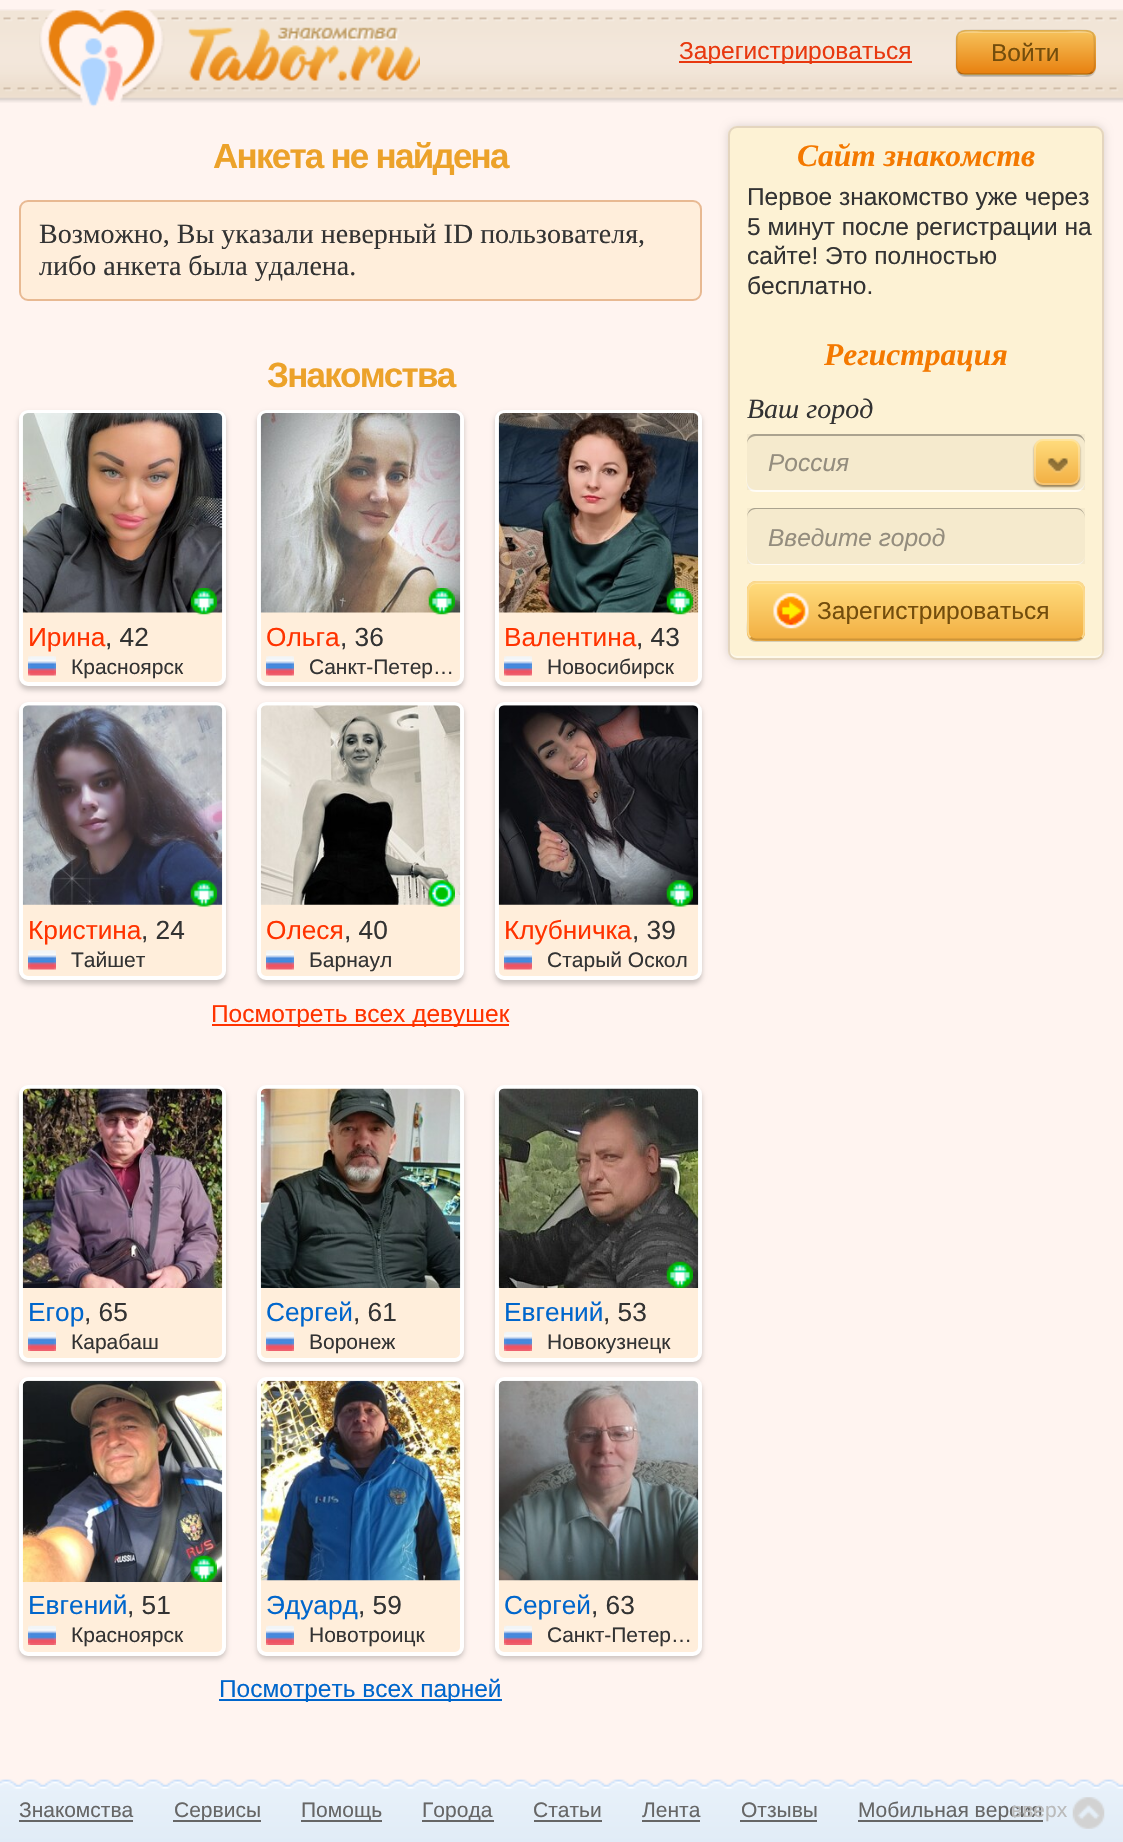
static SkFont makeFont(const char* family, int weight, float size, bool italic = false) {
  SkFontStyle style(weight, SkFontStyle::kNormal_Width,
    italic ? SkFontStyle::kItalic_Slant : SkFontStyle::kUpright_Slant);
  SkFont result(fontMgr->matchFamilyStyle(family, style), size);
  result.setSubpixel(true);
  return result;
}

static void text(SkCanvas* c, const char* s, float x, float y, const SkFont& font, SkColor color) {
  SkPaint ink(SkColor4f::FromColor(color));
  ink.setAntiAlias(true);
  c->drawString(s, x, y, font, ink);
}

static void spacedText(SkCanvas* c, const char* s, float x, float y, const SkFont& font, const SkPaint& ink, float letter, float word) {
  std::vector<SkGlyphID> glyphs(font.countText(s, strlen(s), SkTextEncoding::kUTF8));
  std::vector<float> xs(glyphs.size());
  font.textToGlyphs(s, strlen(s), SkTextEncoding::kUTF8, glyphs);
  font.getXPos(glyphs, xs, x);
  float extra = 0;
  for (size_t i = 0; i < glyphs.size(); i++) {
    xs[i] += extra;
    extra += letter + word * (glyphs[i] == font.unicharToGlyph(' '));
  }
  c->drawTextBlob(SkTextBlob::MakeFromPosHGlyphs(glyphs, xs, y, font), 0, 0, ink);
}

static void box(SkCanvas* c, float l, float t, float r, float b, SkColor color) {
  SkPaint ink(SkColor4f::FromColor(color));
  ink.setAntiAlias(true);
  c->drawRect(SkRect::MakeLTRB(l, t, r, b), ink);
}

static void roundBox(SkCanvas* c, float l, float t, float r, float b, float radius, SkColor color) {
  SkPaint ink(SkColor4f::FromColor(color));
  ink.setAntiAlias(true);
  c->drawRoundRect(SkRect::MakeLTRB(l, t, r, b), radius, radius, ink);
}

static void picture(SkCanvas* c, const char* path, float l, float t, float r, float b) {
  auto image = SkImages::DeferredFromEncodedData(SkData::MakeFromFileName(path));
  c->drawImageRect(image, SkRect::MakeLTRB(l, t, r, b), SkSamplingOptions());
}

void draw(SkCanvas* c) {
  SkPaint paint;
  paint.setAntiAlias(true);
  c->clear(0xfffff4f0);
  picture(c, "img_01.png", 0, 9, 1123, 103);
  picture(c, "img_02.png", 39, 9, 420, 107);
  box(c, 679, 61, 912, 63, 0xffe8380f);
  SkFont face1 = makeFont("Liberation Sans", 400, 24.5f);
  text(c, "Зарегистрироваться", 679, 59, face1, 0xffe8380f);
  paint.setColor(0x26000000);
  c->drawPath(SkPathBuilder().moveTo(956, 70).cubicTo(957, 74, 961, 77, 965, 77).lineTo(1087, 77).cubicTo(1092, 77, 1096, 73, 1096, 68).lineTo(1096, 41).lineTo(1095, 38).lineTo(1095, 68).cubicTo(1093, 80, 1072, 75, 1066, 75).lineTo(964, 75).cubicTo(961, 75, 958, 73, 956, 70).close().detach(), paint);
  roundBox(c, 956, 30, 1096, 75, 9, 0xfff6c25b);
  c->save();
  c->clipPath(SkPathBuilder().moveTo(965, 30).lineTo(1087, 30).cubicTo(1092, 30, 1096, 34, 1096, 39).lineTo(1096, 66).cubicTo(1096, 71, 1092, 75, 1087, 75).lineTo(965, 75).cubicTo(960, 75, 956, 71, 956, 66).lineTo(956, 39).cubicTo(956, 34, 960, 30, 965, 30).close().detach(), true);
  {
    const SkColor colors[] = {0xfff6c25b, 0xffe8800f};
    const float stops[] = {0, 1};
    const SkPoint ends[] = {{1026, 31}, {1026, 74}};
    paint.setShader(SkGradientShader::MakeLinear(ends, colors, stops, 2, SkTileMode::kClamp));
    paint.setAlpha(255);
  }
  c->drawRect(SkRect::MakeLTRB(956, 32, 1096, 74), paint);
  c->restore();
  paint.setShader(nullptr);
  paint.setColor(0x40ffffff);
  c->drawPath(SkPathBuilder().moveTo(964, 33).lineTo(1087, 33).cubicTo(1091, 33, 1094, 36, 1094, 40).cubicTo(1094, 27, 1073, 32, 1066, 32).lineTo(984, 32).cubicTo(978, 32, 957, 27, 957, 40).cubicTo(957, 36, 960, 33, 964, 33).close().detach(), paint);
  paint.setStyle(SkPaint::kStroke_Style);
  paint.setStrokeWidth(1.8f);
  paint.setColor(0x40000000);
  c->drawPath(SkPathBuilder().moveTo(1092.5f, 72).cubicTo(1091, 73.5f, 1089, 74.5f, 1087, 74.5f).lineTo(964, 74.5f).cubicTo(962, 74.5f, 960, 73.5f, 958.5f, 72).detach(), paint);
  paint.setColor(0x1a000000);
  c->drawPath(SkPathBuilder().moveTo(958.5f, 72).cubicTo(955, 68.5f, 956.5f, 62, 956.5f, 57).cubicTo(956.5f, 27.5f, 953, 30.5f, 984.5f, 30.5f).lineTo(1066.5f, 30.5f).cubicTo(1098, 30.5f, 1094.5f, 27.5f, 1094.5f, 57).cubicTo(1094.5f, 62, 1096, 68.5f, 1092.5f, 72).detach(), paint);
  text(c, "Войти", 991, 61, face1, 0xff734d0c);
  SkFont face2 = makeFont("Liberation Sans", 700, 35);
  paint.setStyle(SkPaint::kFill_Style);
  paint.setColor(0xffeca22a);
  spacedText(c, "Анкета не найдена", 213, 168, face2, paint, -1.75f, 0);
  paint.setColor(0xffffeedb);
  c->drawRoundRect(SkRect::MakeLTRB(20, 201, 701, 300), 8, 8, paint);
  paint.setStyle(SkPaint::kStroke_Style);
  paint.setStrokeWidth(2);
  paint.setColor(0xffe8b992);
  c->drawRoundRect(SkRect::MakeLTRB(20, 201, 701, 300), 8, 8, paint);
  SkFont face3 = makeFont("Liberation Serif", 400, 28);
  text(c, "Возможно, Вы указали неверный ID пользователя,", 39, 243, face3, 0xff333333);
  text(c, "либо анкета была удалена.", 39, 275, face3, 0xff333333);
  paint.setStyle(SkPaint::kFill_Style);
  paint.setColor(0xffeca22a);
  spacedText(c, "Знакомства", 267, 387, face2, paint, -1.75f, 0);
  paint.setColor(0x33000000);
  paint.setMaskFilter(SkMaskFilter::MakeBlur(kNormal_SkBlurStyle, 2.5f));
  c->drawRoundRect(SkRect::MakeLTRB(19, 413, 226, 690), 9, 9, paint);
  paint.setMaskFilter(nullptr);
  paint.setColor(0xffffeedb);
  c->drawRoundRect(SkRect::MakeLTRB(21, 412, 224, 684), 7, 7, paint);
  paint.setStyle(SkPaint::kStroke_Style);
  paint.setStrokeWidth(4);
  paint.setColor(0xffffffff);
  c->drawRoundRect(SkRect::MakeLTRB(21, 412, 224, 684), 7, 7, paint);
  picture(c, "img_03.png", 22, 413, 223, 613);
  picture(c, "img_04.png", 190, 588, 217, 615);
  SkFont face4 = makeFont("Liberation Sans", 400, 26.25f);
  text(c, "Ирина", 28, 646, face4, 0xffff3300);
  text(c, ", 42", 105, 646, face4, 0xff333333);
  picture(c, "img_05.png", 28, 656, 56, 676);
  SkFont face5 = makeFont("Liberation Sans", 400, 21);
  text(c, "Красноярск", 71, 674, face5, 0xff333333);
  paint.setStyle(SkPaint::kFill_Style);
  paint.setColor(0x33000000);
  paint.setMaskFilter(SkMaskFilter::MakeBlur(kNormal_SkBlurStyle, 2.5f));
  c->drawRoundRect(SkRect::MakeLTRB(257, 413, 464, 690), 9, 9, paint);
  paint.setMaskFilter(nullptr);
  paint.setColor(0xffffeedb);
  c->drawRoundRect(SkRect::MakeLTRB(259, 412, 462, 684), 7, 7, paint);
  paint.setStyle(SkPaint::kStroke_Style);
  paint.setColor(0xffffffff);
  c->drawRoundRect(SkRect::MakeLTRB(259, 412, 462, 684), 7, 7, paint);
  picture(c, "img_06.png", 260, 413, 461, 613);
  picture(c, "img_07.png", 428, 588, 455, 615);
  text(c, "Ольга", 266, 646, face4, 0xffff3300);
  text(c, ", 36", 340, 646, face4, 0xff333333);
  picture(c, "img_08.png", 266, 656, 294, 676);
  text(c, "Санкт-Петер…", 309, 674, face5, 0xff333333);
  paint.setStyle(SkPaint::kFill_Style);
  paint.setColor(0x33000000);
  paint.setMaskFilter(SkMaskFilter::MakeBlur(kNormal_SkBlurStyle, 2.5f));
  c->drawRoundRect(SkRect::MakeLTRB(495, 413, 702, 690), 9, 9, paint);
  paint.setMaskFilter(nullptr);
  paint.setColor(0xffffeedb);
  c->drawRoundRect(SkRect::MakeLTRB(497, 412, 700, 684), 7, 7, paint);
  paint.setStyle(SkPaint::kStroke_Style);
  paint.setColor(0xffffffff);
  c->drawRoundRect(SkRect::MakeLTRB(497, 412, 700, 684), 7, 7, paint);
  picture(c, "img_09.png", 498, 413, 699, 613);
  picture(c, "img_10.png", 666, 588, 693, 615);
  text(c, "Валентина", 504, 646, face4, 0xffff3300);
  text(c, ", 43", 636, 646, face4, 0xff333333);
  picture(c, "img_05.png", 504, 656, 532, 676);
  text(c, "Новосибирск", 547, 674, face5, 0xff333333);
  paint.setStyle(SkPaint::kFill_Style);
  paint.setColor(0x33000000);
  paint.setMaskFilter(SkMaskFilter::MakeBlur(kNormal_SkBlurStyle, 2.5f));
  c->drawRoundRect(SkRect::MakeLTRB(19, 705, 226, 984), 9, 9, paint);
  paint.setMaskFilter(nullptr);
  paint.setColor(0xffffeedb);
  c->drawRoundRect(SkRect::MakeLTRB(21, 704, 224, 978), 7, 7, paint);
  paint.setStyle(SkPaint::kStroke_Style);
  paint.setColor(0xffffffff);
  c->drawRoundRect(SkRect::MakeLTRB(21, 704, 224, 978), 7, 7, paint);
  picture(c, "img_11.png", 22, 705, 223, 905);
  picture(c, "img_12.png", 190, 880, 217, 907);
  text(c, "Кристина", 28, 939, face4, 0xffff3300);
  text(c, ", 24", 141, 939, face4, 0xff333333);
  picture(c, "img_05.png", 28, 950, 56, 970);
  text(c, "Тайшет", 71, 967, face5, 0xff333333);
  paint.setStyle(SkPaint::kFill_Style);
  paint.setColor(0x33000000);
  paint.setMaskFilter(SkMaskFilter::MakeBlur(kNormal_SkBlurStyle, 2.5f));
  c->drawRoundRect(SkRect::MakeLTRB(257, 705, 464, 984), 9, 9, paint);
  paint.setMaskFilter(nullptr);
  paint.setColor(0xffffeedb);
  c->drawRoundRect(SkRect::MakeLTRB(259, 704, 462, 978), 7, 7, paint);
  paint.setStyle(SkPaint::kStroke_Style);
  paint.setColor(0xffffffff);
  c->drawRoundRect(SkRect::MakeLTRB(259, 704, 462, 978), 7, 7, paint);
  picture(c, "img_13.png", 260, 705, 461, 905);
  picture(c, "img_14.png", 428, 880, 455, 907);
  text(c, "Олеся", 266, 939, face4, 0xffff3300);
  text(c, ", 40", 344, 939, face4, 0xff333333);
  picture(c, "img_08.png", 266, 950, 294, 970);
  text(c, "Барнаул", 309, 967, face5, 0xff333333);
  paint.setStyle(SkPaint::kFill_Style);
  paint.setColor(0x33000000);
  paint.setMaskFilter(SkMaskFilter::MakeBlur(kNormal_SkBlurStyle, 2.5f));
  c->drawRoundRect(SkRect::MakeLTRB(495, 705, 702, 984), 9, 9, paint);
  paint.setMaskFilter(nullptr);
  paint.setColor(0xffffeedb);
  c->drawRoundRect(SkRect::MakeLTRB(497, 704, 700, 978), 7, 7, paint);
  paint.setStyle(SkPaint::kStroke_Style);
  paint.setColor(0xffffffff);
  c->drawRoundRect(SkRect::MakeLTRB(497, 704, 700, 978), 7, 7, paint);
  picture(c, "img_15.png", 498, 705, 699, 905);
  picture(c, "img_16.png", 666, 880, 693, 907);
  text(c, "Клубничка", 504, 939, face4, 0xffff3300);
  text(c, ", 39", 632, 939, face4, 0xff333333);
  picture(c, "img_05.png", 504, 950, 532, 970);
  text(c, "Старый Оскол", 547, 967, face5, 0xff333333);
  box(c, 212, 1024, 509, 1026, 0xffff3300);
  text(c, "Посмотреть всех девушек", 211, 1022, face1, 0xffff3300);
  paint.setStyle(SkPaint::kFill_Style);
  paint.setColor(0x33000000);
  paint.setMaskFilter(SkMaskFilter::MakeBlur(kNormal_SkBlurStyle, 2.5f));
  c->drawRoundRect(SkRect::MakeLTRB(19, 1089, 226, 1365), 9, 9, paint);
  paint.setMaskFilter(nullptr);
  paint.setColor(0xffffeedb);
  c->drawRoundRect(SkRect::MakeLTRB(21, 1087, 224, 1360), 7, 7, paint);
  paint.setStyle(SkPaint::kStroke_Style);
  paint.setColor(0xffffffff);
  c->drawRoundRect(SkRect::MakeLTRB(21, 1087, 224, 1360), 7, 7, paint);
  picture(c, "img_17.png", 22, 1088, 223, 1288);
  text(c, "Егор", 28, 1321, face4, 0xff0066cc);
  text(c, ", 65", 84, 1321, face4, 0xff333333);
  picture(c, "img_18.png", 28, 1331, 56, 1351);
  text(c, "Карабаш", 71, 1349, face5, 0xff333333);
  paint.setStyle(SkPaint::kFill_Style);
  paint.setColor(0x33000000);
  paint.setMaskFilter(SkMaskFilter::MakeBlur(kNormal_SkBlurStyle, 2.5f));
  c->drawRoundRect(SkRect::MakeLTRB(257, 1089, 464, 1365), 9, 9, paint);
  paint.setMaskFilter(nullptr);
  paint.setColor(0xffffeedb);
  c->drawRoundRect(SkRect::MakeLTRB(259, 1087, 462, 1360), 7, 7, paint);
  paint.setStyle(SkPaint::kStroke_Style);
  paint.setColor(0xffffffff);
  c->drawRoundRect(SkRect::MakeLTRB(259, 1087, 462, 1360), 7, 7, paint);
  picture(c, "img_19.png", 260, 1088, 461, 1288);
  text(c, "Сергей", 266, 1321, face4, 0xff0066cc);
  text(c, ", 61", 353, 1321, face4, 0xff333333);
  picture(c, "img_20.png", 266, 1331, 294, 1351);
  text(c, "Воронеж", 309, 1349, face5, 0xff333333);
  paint.setStyle(SkPaint::kFill_Style);
  paint.setColor(0x33000000);
  paint.setMaskFilter(SkMaskFilter::MakeBlur(kNormal_SkBlurStyle, 2.5f));
  c->drawRoundRect(SkRect::MakeLTRB(495, 1089, 702, 1365), 9, 9, paint);
  paint.setMaskFilter(nullptr);
  paint.setColor(0xffffeedb);
  c->drawRoundRect(SkRect::MakeLTRB(497, 1087, 700, 1360), 7, 7, paint);
  paint.setStyle(SkPaint::kStroke_Style);
  paint.setColor(0xffffffff);
  c->drawRoundRect(SkRect::MakeLTRB(497, 1087, 700, 1360), 7, 7, paint);
  picture(c, "img_21.png", 498, 1088, 699, 1288);
  picture(c, "img_22.png", 666, 1261, 693, 1288);
  text(c, "Евгений", 504, 1321, face4, 0xff0066cc);
  text(c, ", 53", 603, 1321, face4, 0xff333333);
  picture(c, "img_18.png", 504, 1331, 532, 1351);
  text(c, "Новокузнецк", 547, 1349, face5, 0xff333333);
  paint.setStyle(SkPaint::kFill_Style);
  paint.setColor(0x33000000);
  paint.setMaskFilter(SkMaskFilter::MakeBlur(kNormal_SkBlurStyle, 2.5f));
  c->drawRoundRect(SkRect::MakeLTRB(19, 1381, 226, 1659), 9, 9, paint);
  paint.setMaskFilter(nullptr);
  paint.setColor(0xffffeedb);
  c->drawRoundRect(SkRect::MakeLTRB(21, 1379, 224, 1654), 7, 7, paint);
  paint.setStyle(SkPaint::kStroke_Style);
  paint.setColor(0xffffffff);
  c->drawRoundRect(SkRect::MakeLTRB(21, 1379, 224, 1654), 7, 7, paint);
  picture(c, "img_23.png", 22, 1380, 223, 1582);
  picture(c, "img_24.png", 190, 1555, 217, 1582);
  text(c, "Евгений", 28, 1614, face4, 0xff0066cc);
  text(c, ", 51", 127, 1614, face4, 0xff333333);
  picture(c, "img_18.png", 28, 1625, 56, 1645);
  text(c, "Красноярск", 71, 1642, face5, 0xff333333);
  paint.setStyle(SkPaint::kFill_Style);
  paint.setColor(0x33000000);
  paint.setMaskFilter(SkMaskFilter::MakeBlur(kNormal_SkBlurStyle, 2.5f));
  c->drawRoundRect(SkRect::MakeLTRB(257, 1381, 464, 1659), 9, 9, paint);
  paint.setMaskFilter(nullptr);
  paint.setColor(0xffffeedb);
  c->drawRoundRect(SkRect::MakeLTRB(259, 1379, 462, 1654), 7, 7, paint);
  paint.setStyle(SkPaint::kStroke_Style);
  paint.setColor(0xffffffff);
  c->drawRoundRect(SkRect::MakeLTRB(259, 1379, 462, 1654), 7, 7, paint);
  picture(c, "img_25.png", 260, 1380, 461, 1581);
  text(c, "Эдуард", 266, 1614, face4, 0xff0066cc);
  text(c, ", 59", 358, 1614, face4, 0xff333333);
  picture(c, "img_20.png", 266, 1625, 294, 1645);
  text(c, "Новотроицк", 309, 1642, face5, 0xff333333);
  paint.setStyle(SkPaint::kFill_Style);
  paint.setColor(0x33000000);
  paint.setMaskFilter(SkMaskFilter::MakeBlur(kNormal_SkBlurStyle, 2.5f));
  c->drawRoundRect(SkRect::MakeLTRB(495, 1381, 702, 1659), 9, 9, paint);
  paint.setMaskFilter(nullptr);
  paint.setColor(0xffffeedb);
  c->drawRoundRect(SkRect::MakeLTRB(497, 1379, 700, 1654), 7, 7, paint);
  paint.setStyle(SkPaint::kStroke_Style);
  paint.setColor(0xffffffff);
  c->drawRoundRect(SkRect::MakeLTRB(497, 1379, 700, 1654), 7, 7, paint);
  picture(c, "img_26.png", 498, 1380, 699, 1581);
  text(c, "Сергей", 504, 1614, face4, 0xff0066cc);
  text(c, ", 63", 591, 1614, face4, 0xff333333);
  picture(c, "img_18.png", 504, 1625, 532, 1645);
  text(c, "Санкт-Петер…", 547, 1642, face5, 0xff333333);
  box(c, 219, 1699, 502, 1701, 0xff0066cc);
  text(c, "Посмотреть всех парней", 219, 1697, face1, 0xff0066cc);
  paint.setStyle(SkPaint::kFill_Style);
  paint.setColor(0x26000000);
  paint.setMaskFilter(SkMaskFilter::MakeBlur(kNormal_SkBlurStyle, 4.5f));
  c->drawRoundRect(SkRect::MakeLTRB(728, 126, 1104, 660), 9, 9, paint);
  paint.setMaskFilter(nullptr);
  roundBox(c, 728, 126, 1104, 660, 9, 0xfffdf2d4);
  paint.setColor(0xfffef9ea);
  c->drawPath(SkPathBuilder().moveTo(730, 649).lineTo(730, 651).cubicTo(730, 655, 733, 658, 737, 658).lineTo(1096, 658).cubicTo(1100, 658, 1103, 655, 1103, 651).lineTo(1103, 135).cubicTo(1103, 134, 1103, 132, 1102, 131).lineTo(1102, 649).cubicTo(1102, 653, 1099, 656, 1096, 656).lineTo(737, 656).cubicTo(733, 656, 730, 653, 730, 649).close().detach(), paint);
  paint.setStyle(SkPaint::kStroke_Style);
  paint.setStrokeWidth(2);
  paint.setColor(0xffe4d5be);
  c->drawRoundRect(SkRect::MakeLTRB(729, 127, 1103, 659), 8, 8, paint);
  SkFont face6 = makeFont("Liberation Serif", 700, 31.5f, true);
  text(c, "Сайт знакомств", 797, 166, face6, 0xfff47900);
  text(c, "Первое знакомство уже через", 747, 205, face1, 0xff333333);
  text(c, "5 минут после регистрации на", 747, 235, face1, 0xff333333);
  text(c, "сайте! Это полностью", 747, 264, face1, 0xff333333);
  text(c, "бесплатно.", 747, 294, face1, 0xff333333);
  text(c, "Регистрация", 824, 365, face6, 0xfff47900);
  SkFont face7 = makeFont("Liberation Serif", 400, 28, true);
  text(c, "Ваш город", 747, 418, face7, 0xff333333);
  paint.setStyle(SkPaint::kFill_Style);
  paint.setColor(0xfffffcf6);
  c->drawPath(SkPathBuilder().moveTo(747, 443).lineTo(747, 470).cubicTo(747, 478, 744, 492, 756, 492).lineTo(1076, 492).cubicTo(1082, 492, 1085, 487, 1085, 481).cubicTo(1085, 486, 1081, 490, 1076, 490).lineTo(756, 490).cubicTo(751, 490, 747, 486, 747, 481).close().detach(), paint);
  box(c, 747, 434, 1085, 490, 0x08000000);
  paint.setColor(0x4d000000);
  c->drawPath(SkPathBuilder().moveTo(756, 436).lineTo(1076, 436).cubicTo(1081, 436, 1085, 440, 1085, 444).cubicTo(1085, 439, 1082, 434, 1076, 434).lineTo(754, 434).cubicTo(749, 435, 747, 439, 747, 444).cubicTo(747, 440, 751, 436, 756, 436).close().detach(), paint);
  SkFont face8 = makeFont("Liberation Sans", 400, 24.5f, true);
  text(c, "Россия", 768, 471, face8, 0xff948d7e);
  paint.setColor(0xbf7d6133);
  paint.setMaskFilter(SkMaskFilter::MakeBlur(kNormal_SkBlurStyle, 1));
  c->drawRoundRect(SkRect::MakeLTRB(1034, 441, 1080, 487), 9, 9, paint);
  paint.setMaskFilter(nullptr);
  {
    const SkColor colors[] = {0xffffdc7e, 0xfff2af42};
    const float stops[] = {0, 1};
    const SkPoint ends[] = {{1057, 439}, {1057, 485}};
    paint.setShader(SkGradientShader::MakeLinear(ends, colors, stops, 2, SkTileMode::kClamp));
    paint.setAlpha(255);
  }
  c->drawRoundRect(SkRect::MakeLTRB(1034, 439, 1080, 485), 9, 9, paint);
  paint.setStyle(SkPaint::kStroke_Style);
  paint.setShader(nullptr);
  paint.setColor(0x40ffffff);
  c->drawRoundRect(SkRect::MakeLTRB(1035, 440, 1079, 484), 8, 8, paint);
  picture(c, "img_27.png", 1047, 458, 1068, 473);
  paint.setStyle(SkPaint::kFill_Style);
  paint.setColor(0xfffffcf6);
  c->drawPath(SkPathBuilder().moveTo(747, 516).lineTo(747, 543).cubicTo(747, 551, 744, 565, 756, 565).lineTo(1076, 565).cubicTo(1082, 565, 1085, 560, 1085, 555).cubicTo(1085, 560, 1081, 564, 1076, 564).lineTo(756, 564).cubicTo(751, 564, 747, 560, 747, 555).close().detach(), paint);
  box(c, 747, 508, 1085, 564, 0x08000000);
  paint.setColor(0x4d000000);
  c->drawPath(SkPathBuilder().moveTo(756, 509).lineTo(1076, 509).cubicTo(1081, 509, 1085, 513, 1085, 518).cubicTo(1085, 513, 1082, 508, 1076, 508).lineTo(754, 508).cubicTo(749, 509, 747, 513, 747, 518).cubicTo(747, 513, 751, 509, 756, 509).close().detach(), paint);
  text(c, "Введите город", 768, 546, face8, 0xff948d7e);
  paint.setColor(0xffd7ceb4);
  c->drawPath(SkPathBuilder().moveTo(747, 590).lineTo(747, 619).cubicTo(747, 627, 744, 642, 756, 642).lineTo(1076, 642).cubicTo(1082, 642, 1085, 637, 1085, 632).cubicTo(1085, 637, 1081, 640, 1076, 640).lineTo(756, 640).cubicTo(751, 640, 747, 637, 747, 632).close().detach(), paint);
  roundBox(c, 747, 581, 1085, 641, 9, 0xfff2af42);
  c->save();
  c->clipPath(SkPathBuilder().moveTo(756, 581).lineTo(1076, 581).cubicTo(1081, 581, 1085, 585, 1085, 590).lineTo(1085, 632).cubicTo(1085, 637, 1081, 641, 1076, 641).lineTo(756, 641).cubicTo(751, 641, 747, 637, 747, 632).lineTo(747, 590).cubicTo(747, 585, 751, 581, 756, 581).close().detach(), true);
  {
    const SkColor colors[] = {0xffffdc7e, 0xfff2af42};
    const float stops[] = {0, 1};
    const SkPoint ends[] = {{916, 583}, {916, 639}};
    paint.setShader(SkGradientShader::MakeLinear(ends, colors, stops, 2, SkTileMode::kClamp));
    paint.setAlpha(255);
  }
  c->drawRect(SkRect::MakeLTRB(747, 583, 1085, 639), paint);
  c->restore();
  paint.setShader(nullptr);
  paint.setColor(0x40ffffff);
  c->drawPath(SkPathBuilder().moveTo(756, 584).lineTo(1076, 584).cubicTo(1080, 584, 1083, 588, 1083, 592).lineTo(1083, 590).cubicTo(1083, 586, 1080, 583, 1076, 583).lineTo(756, 583).cubicTo(752, 583, 749, 586, 749, 590).lineTo(749, 592).cubicTo(749, 588, 752, 584, 756, 584).close().detach(), paint);
  paint.setStyle(SkPaint::kStroke_Style);
  paint.setStrokeWidth(1.8f);
  paint.setColor(0x26000000);
  c->drawPath(SkPathBuilder().moveTo(1082, 637.5f).cubicTo(1080.5f, 639, 1078.5f, 639.5f, 1076, 639.5f).lineTo(756, 639.5f).cubicTo(754, 639.5f, 752, 639, 750.5f, 637.5f).detach(), paint);
  paint.setColor(0xfffbd98f);
  c->drawPath(SkPathBuilder().moveTo(750.5f, 637.5f).cubicTo(749, 636, 748, 634, 748, 632).lineTo(748, 590).cubicTo(748, 587.5f, 749, 585.5f, 750.5f, 584).cubicTo(752, 582.5f, 754, 582, 756, 582).lineTo(1076, 582).cubicTo(1078.5f, 582, 1080.5f, 582.5f, 1082, 584).cubicTo(1083.5f, 585.5f, 1084, 587.5f, 1084, 590).lineTo(1084, 632).cubicTo(1084, 634, 1083.5f, 636, 1082, 637.5f).detach(), paint);
  picture(c, "img_28.png", 773, 593, 809, 629);
  text(c, "Зарегистрироваться", 817, 619, face1, 0xff734d0c);
  paint.setStyle(SkPaint::kFill_Style);
  {
    const SkColor colors[] = {0xffe8f1fa, 0xffd8e6f2};
    const float stops[] = {0, 1};
    const SkPoint ends[] = {{562, 1785}, {562, 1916}};
    paint.setShader(SkGradientShader::MakeLinear(ends, colors, stops, 2, SkTileMode::kClamp));
    paint.setAlpha(255);
  }
  c->drawRect(SkRect::MakeLTRB(0, 1788, 1123, 1842), paint);
  picture(c, "img_29.png", 0, 1779, 1123, 1789);
  text(c, "Знакомства", 19, 1817, face5, 0xff666666);
  box(c, 19, 1820, 133, 1822, 0xff666666);
  box(c, 173, 1820, 261, 1822, 0xff666666);
  text(c, "Сервисы", 174, 1817, face5, 0xff666666);
  box(c, 301, 1820, 382, 1822, 0xff666666);
  text(c, "Помощь", 301, 1817, face5, 0xff666666);
  box(c, 422, 1820, 494, 1822, 0xff666666);
  text(c, "Города", 422, 1817, face5, 0xff666666);
  text(c, "Статьи", 533, 1817, face5, 0xff666666);
  box(c, 534, 1820, 602, 1822, 0xff666666);
  text(c, "Лента", 642, 1817, face5, 0xff666666);
  box(c, 642, 1820, 700, 1822, 0xff666666);
  text(c, "Отзывы", 741, 1817, face5, 0xff666666);
  box(c, 740, 1820, 817, 1822, 0xff666666);
  box(c, 858, 1820, 1043, 1822, 0xff666666);
  text(c, "Мобильная версия", 858, 1817, face5, 0xff666666);
  text(c, "вверх", 1011, 1817, face5, 0xffbbbbbb);
  picture(c, "img_30.png", 1072, 1797, 1105, 1829);
}
